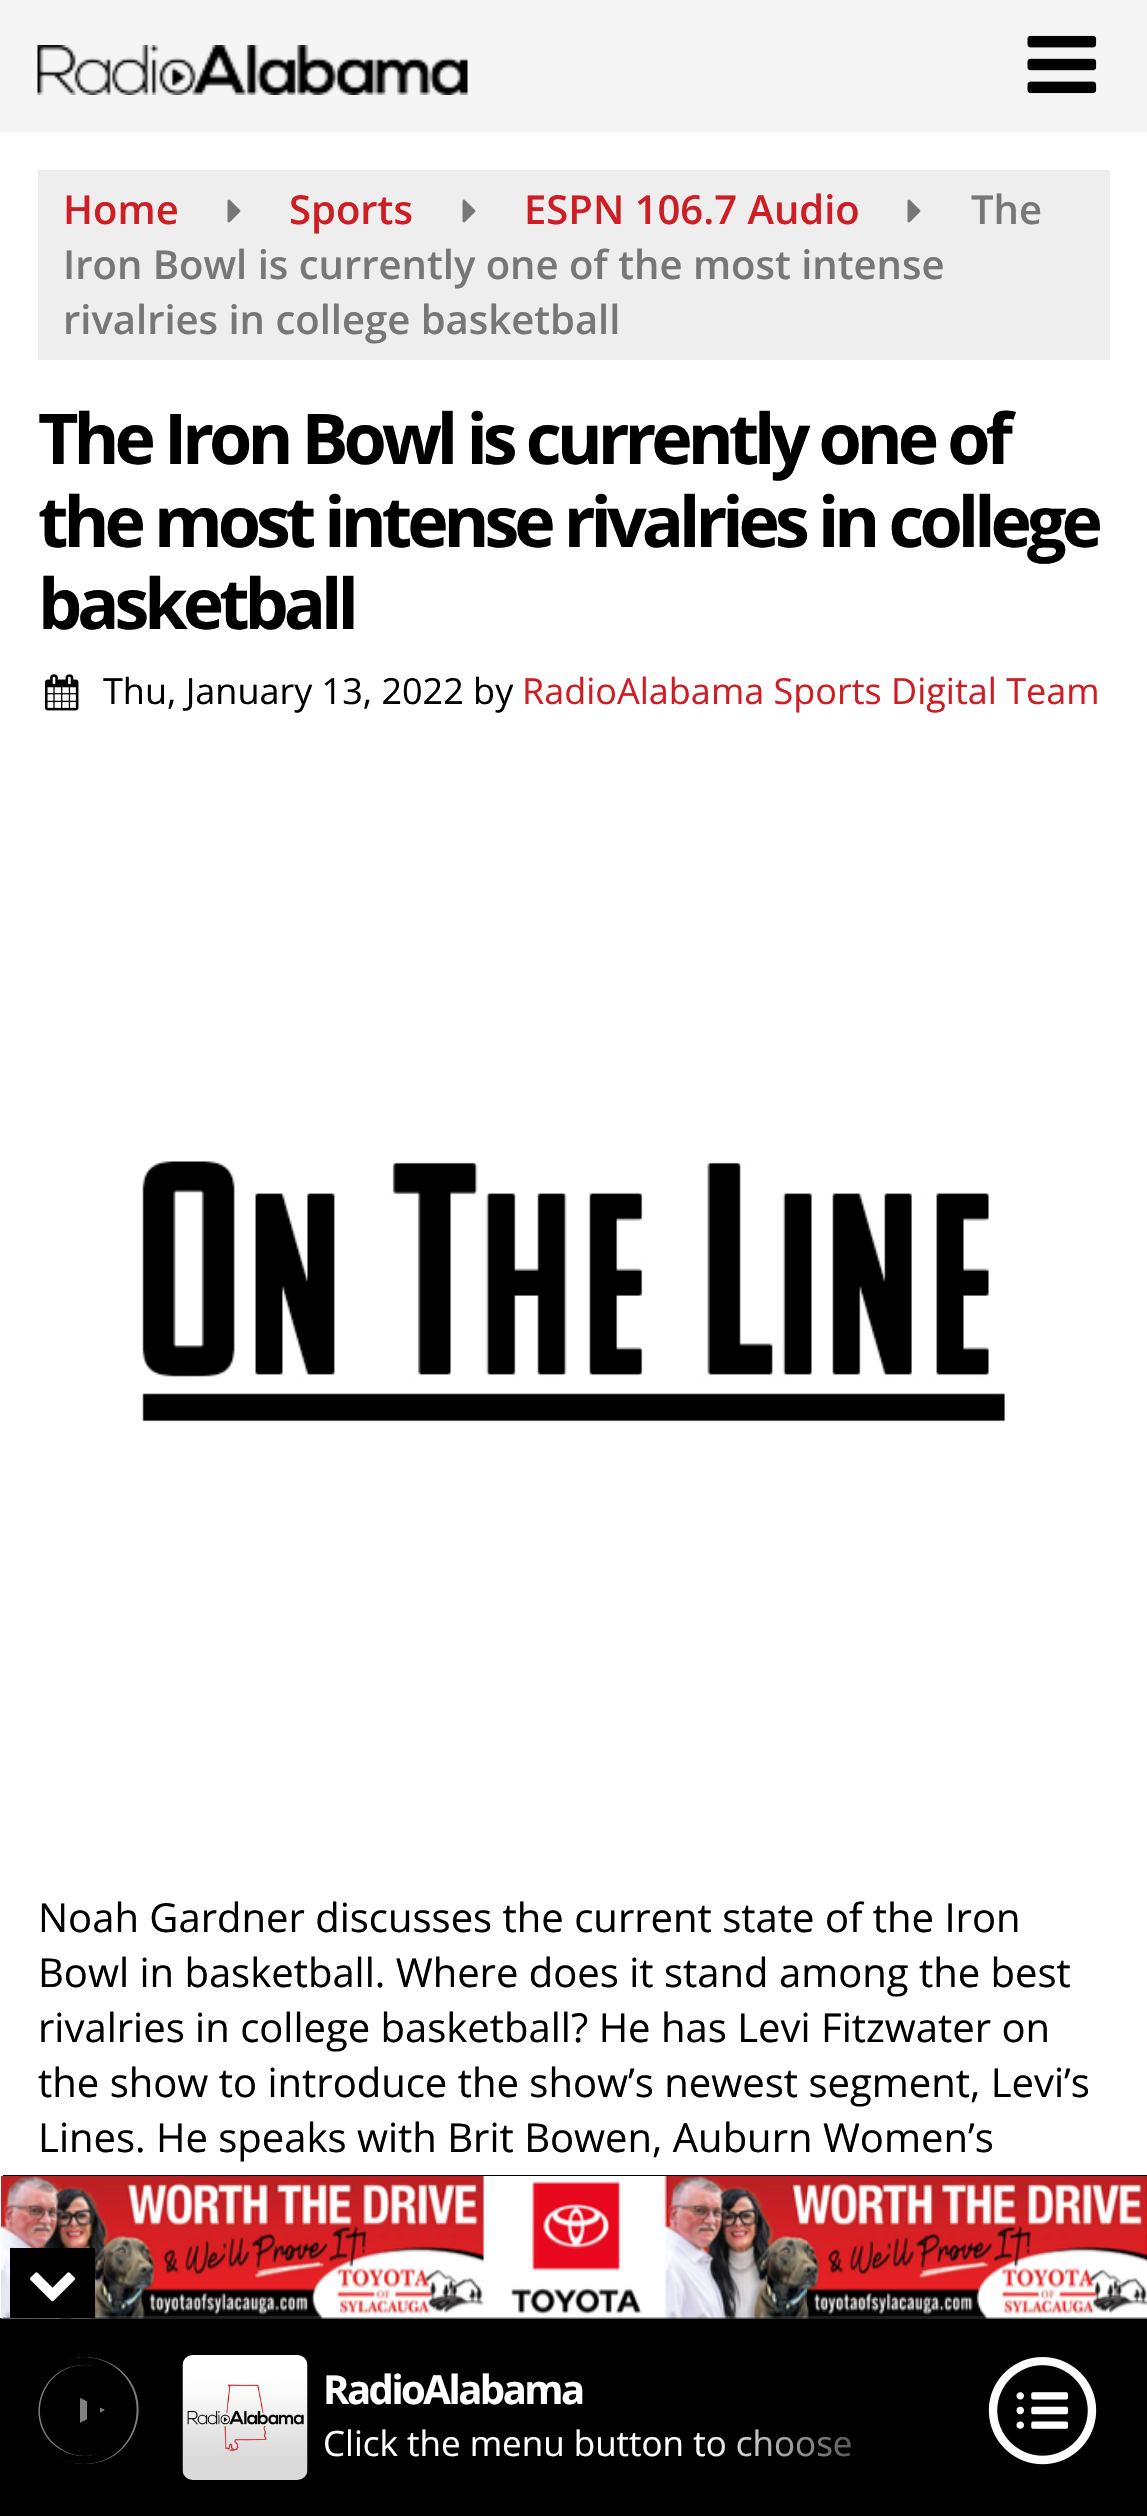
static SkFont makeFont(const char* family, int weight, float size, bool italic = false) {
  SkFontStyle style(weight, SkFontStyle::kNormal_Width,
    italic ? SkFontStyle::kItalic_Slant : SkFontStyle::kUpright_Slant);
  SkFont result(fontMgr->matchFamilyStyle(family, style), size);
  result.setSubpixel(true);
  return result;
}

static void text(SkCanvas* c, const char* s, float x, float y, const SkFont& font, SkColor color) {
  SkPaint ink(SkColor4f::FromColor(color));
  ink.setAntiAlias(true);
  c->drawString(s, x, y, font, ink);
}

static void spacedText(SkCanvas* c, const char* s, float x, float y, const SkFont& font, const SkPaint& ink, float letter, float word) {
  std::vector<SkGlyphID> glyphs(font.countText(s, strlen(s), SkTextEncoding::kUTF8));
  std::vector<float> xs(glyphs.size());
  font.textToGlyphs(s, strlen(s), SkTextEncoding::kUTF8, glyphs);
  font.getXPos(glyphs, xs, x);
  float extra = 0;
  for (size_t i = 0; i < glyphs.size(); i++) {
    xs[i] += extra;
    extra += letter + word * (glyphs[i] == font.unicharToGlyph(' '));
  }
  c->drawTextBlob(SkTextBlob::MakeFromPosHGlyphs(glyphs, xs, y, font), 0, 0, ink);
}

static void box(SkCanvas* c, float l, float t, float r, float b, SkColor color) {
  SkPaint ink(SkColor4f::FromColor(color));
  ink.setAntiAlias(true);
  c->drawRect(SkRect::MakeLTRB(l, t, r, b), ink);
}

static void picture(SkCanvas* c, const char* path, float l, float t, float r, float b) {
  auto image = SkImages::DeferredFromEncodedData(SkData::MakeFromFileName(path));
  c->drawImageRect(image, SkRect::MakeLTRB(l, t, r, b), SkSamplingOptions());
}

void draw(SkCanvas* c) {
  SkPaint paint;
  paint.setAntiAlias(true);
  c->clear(0xffffffff);
  box(c, 0, 0, 1147, 133, 0xfff5f5f5);
  picture(c, "img_01.png", 37, 45, 468, 95);
  picture(c, "img_02.png", 1027, 35, 1097, 94);
  box(c, 38, 170, 1110, 360, 0xffeeeeee);
  SkFont face1 = makeFont("Open Sans", 600, 40);
  text(c, "Home", 63, 224, face1, 0xffce1e25);
  picture(c, "img_03.png", 227, 199, 241, 223);
  text(c, "Sports", 289, 224, face1, 0xffce1e25);
  picture(c, "img_03.png", 462, 199, 476, 223);
  text(c, "ESPN 106.7 Audio", 524, 224, face1, 0xffce1e25);
  picture(c, "img_03.png", 907, 199, 921, 223);
  text(c, "The", 971, 224, face1, 0xff777777);
  text(c, "Iron Bowl is currently one of the most intense", 63, 279, face1, 0xff777777);
  text(c, "rivalries in college basketball", 63, 334, face1, 0xff777777);
  SkFont face2 = makeFont("Open Sans", 700, 70);
  paint.setColor(0xff000000);
  spacedText(c, "The Iron Bowl is currently one of", 38, 464, face2, paint, -5, 0);
  spacedText(c, "the most intense rivalries in college", 38, 547, face2, paint, -5, 0);
  spacedText(c, "basketball", 38, 629, face2, paint, -5, 0);
  picture(c, "img_04.png", 45, 674, 79, 711);
  SkFont face3 = makeFont("Open Sans", 400, 36);
  text(c, "Thu, January 13, 2022 by", 103, 704, face3, 0xff000000);
  text(c, "RadioAlabama Sports Digital Team", 522, 704, face3, 0xffce1e25);
  picture(c, "img_05.png", 142, 1161, 1005, 1422);
  SkFont face4 = makeFont("Open Sans", 400, 40);
  text(c, "Noah Gardner discusses the current state of the Iron", 38, 1932, face4, 0xff000000);
  text(c, "Bowl in basketball. Where does it stand among the best", 38, 1987, face4, 0xff000000);
  text(c, "rivalries in college basketball? He has Levi Fitzwater on", 38, 2042, face4, 0xff000000);
  text(c, "the show to introduce the show’s newest segment, Levi’s", 38, 2097, face4, 0xff000000);
  text(c, "Lines. He speaks with Brit Bowen, Auburn Women’s", 38, 2152, face4, 0xff000000);
  box(c, 0, 2318, 1147, 2516, 0xff000000);
  box(c, 3, 2175, 1147, 2318, 0xff000000);
  picture(c, "img_06.png", 1, 2176, 1147, 2319);
  box(c, 10, 2248, 95, 2318, 0xff000000);
  picture(c, "img_07.png", 30, 2272, 75, 2302);
  paint.setColor(0xff808080);
  c->drawPath(SkPathBuilder().moveTo(85, 2357).cubicTo(73, 2357, 62, 2361, 52, 2368).cubicTo(12, 2399, 34, 2464, 85, 2464).cubicTo(136, 2464, 158, 2399, 118, 2368).cubicTo(108, 2361, 97, 2357, 85, 2357).close().moveTo(85, 2456).cubicTo(76, 2456, 67, 2453, 60, 2448).cubicTo(23, 2423, 41, 2365, 85, 2365).cubicTo(94, 2365, 103, 2368, 110, 2373).cubicTo(147, 2398, 129, 2456, 85, 2456).close().moveTo(72, 2427).lineTo(105, 2410).lineTo(72, 2394).close().detach(), paint);
  paint.setColor(0xff000000);
  c->drawPath(SkPathBuilder().moveTo(84, 2357).cubicTo(72, 2357, 60, 2361, 51, 2368).cubicTo(11, 2399, 33, 2464, 84, 2464).cubicTo(134, 2464, 156, 2399, 116, 2368).cubicTo(107, 2361, 95, 2357, 84, 2357).close().moveTo(84, 2456).cubicTo(74, 2456, 66, 2453, 58, 2448).cubicTo(22, 2423, 39, 2365, 84, 2365).cubicTo(93, 2365, 101, 2368, 109, 2373).cubicTo(145, 2398, 128, 2456, 84, 2456).close().moveTo(87, 2427).lineTo(100, 2427).lineTo(100, 2394).lineTo(87, 2394).close().moveTo(67, 2394).lineTo(80, 2394).lineTo(80, 2427).lineTo(67, 2427).close().detach(), paint);
  picture(c, "img_08.png", 182, 2355, 308, 2480);
  SkFont face5 = makeFont("Open Sans", 700, 40);
  paint.setColor(0xffffffff);
  spacedText(c, "RadioAlabama", 323, 2404, face5, paint, -2.5f, 0);
  SkFont face6 = makeFont("Open Sans", 400, 35);
  text(c, "Click the menu button to choose", 323, 2456, face6, 0xffffffff);
  {
    const SkColor colors[] = {0x00000000, 0xbf000000};
    const float stops[] = {0, 1};
    const SkPoint ends[] = {{700, 2419}, {875, 2419}};
    paint.setShader(SkGradientShader::MakeLinear(ends, colors, stops, 2, SkTileMode::kClamp));
    paint.setAlpha(255);
  }
  c->drawRect(SkRect::MakeLTRB(707, 2429, 851, 2457), paint);
  picture(c, "img_09.png", 988, 2357, 1097, 2465);
}
